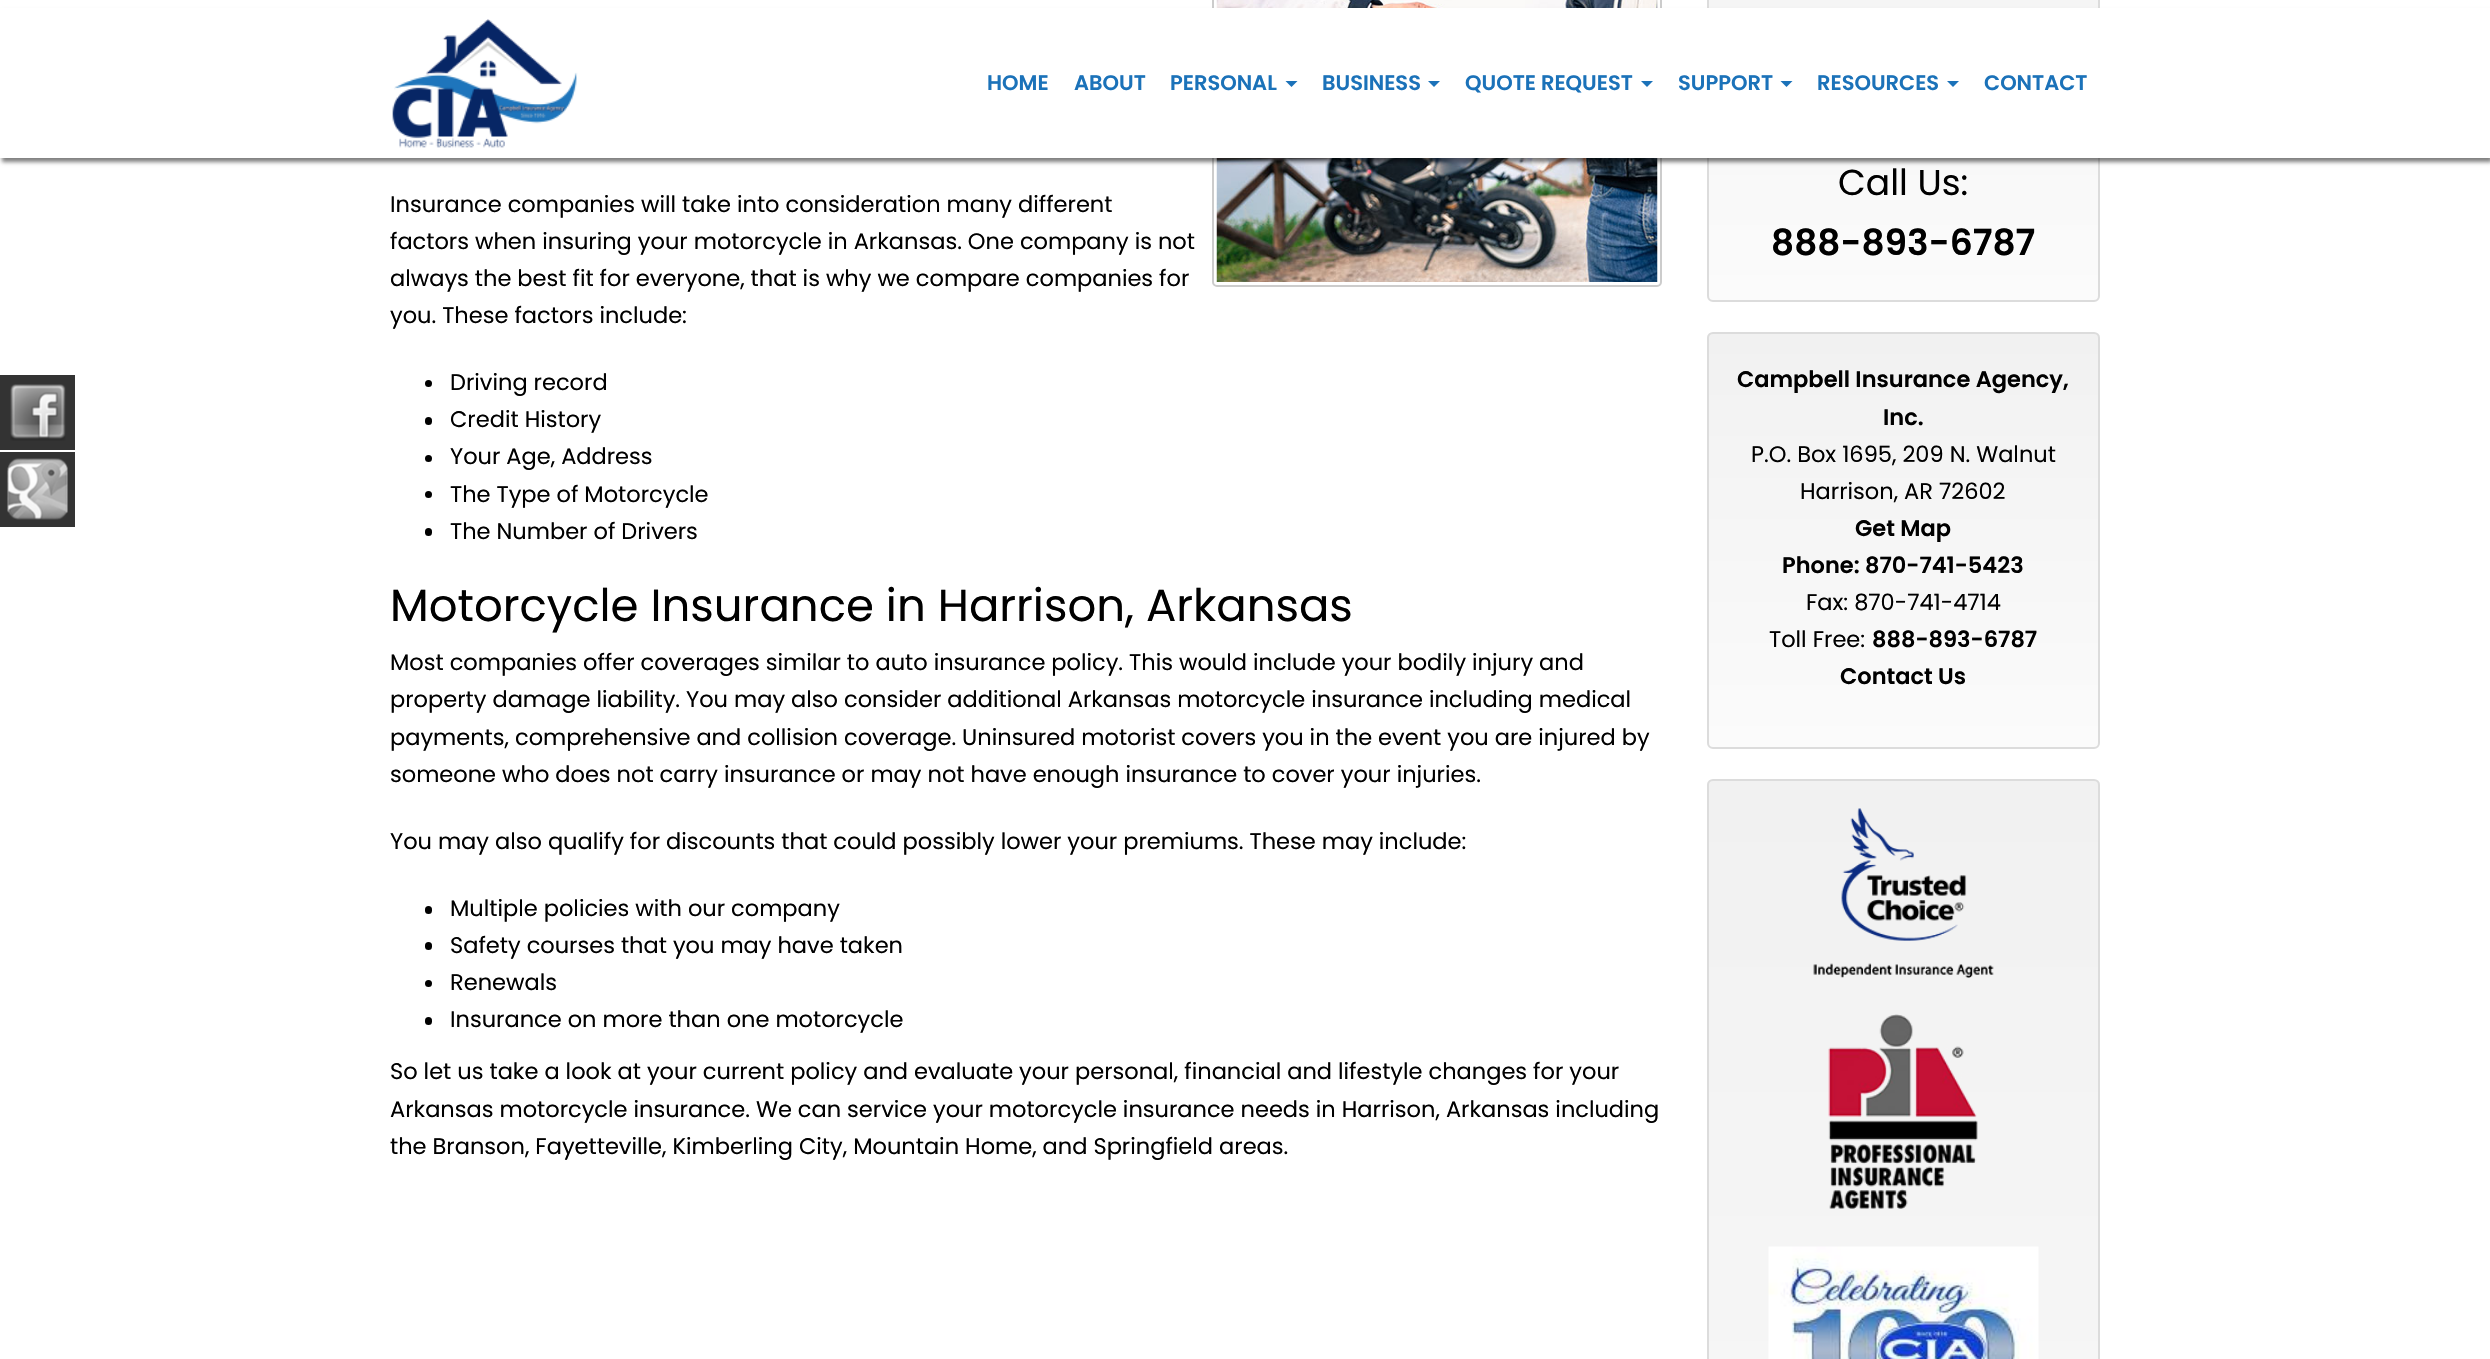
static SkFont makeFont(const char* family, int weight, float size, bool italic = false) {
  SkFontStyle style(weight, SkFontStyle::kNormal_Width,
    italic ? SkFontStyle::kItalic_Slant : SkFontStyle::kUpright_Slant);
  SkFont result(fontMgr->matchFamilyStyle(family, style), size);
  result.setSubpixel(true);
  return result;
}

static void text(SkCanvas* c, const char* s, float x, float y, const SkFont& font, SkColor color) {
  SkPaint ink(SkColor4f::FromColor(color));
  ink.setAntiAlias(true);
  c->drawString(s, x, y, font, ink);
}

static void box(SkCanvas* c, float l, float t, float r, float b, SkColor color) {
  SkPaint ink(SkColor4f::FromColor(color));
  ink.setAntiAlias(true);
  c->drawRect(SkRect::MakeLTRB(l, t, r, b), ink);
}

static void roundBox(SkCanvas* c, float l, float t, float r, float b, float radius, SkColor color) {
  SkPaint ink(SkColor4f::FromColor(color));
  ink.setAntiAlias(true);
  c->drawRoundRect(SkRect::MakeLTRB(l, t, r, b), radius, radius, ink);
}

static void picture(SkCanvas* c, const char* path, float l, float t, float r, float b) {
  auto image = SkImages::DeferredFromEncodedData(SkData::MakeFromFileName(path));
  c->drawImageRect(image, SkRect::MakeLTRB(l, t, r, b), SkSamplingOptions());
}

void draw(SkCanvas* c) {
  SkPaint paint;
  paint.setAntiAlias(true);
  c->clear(0xffffffff);
  paint.setStyle(SkPaint::kStroke_Style);
  paint.setStrokeWidth(2);
  paint.setColor(0xffcccccc);
  c->drawRoundRect(SkRect::MakeLTRB(1213, -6, 1661, 286), 4, 4, paint);
  picture(c, "img_04.png", 1216, 0, 1658, 282);
  c->save();
  c->clipPath(SkPathBuilder().moveTo(1713, -201).lineTo(2094, -201).cubicTo(2097.5f, -201, 2100, -198.5f, 2100, -195).lineTo(2100, 296).cubicTo(2100, 299.5f, 2097.5f, 302, 2094, 302).lineTo(1713, 302).cubicTo(1709.5f, 302, 1707, 299.5f, 1707, 296).lineTo(1707, -195).cubicTo(1707, -198.5f, 1709.5f, -201, 1713, -201).close().detach(), true);
  paint.setStyle(SkPaint::kFill_Style);
  {
    const SkColor colors[] = {0xfff1f1f1, 0xfffbfbfb};
    const float stops[] = {0, 1};
    const SkPoint ends[] = {{1904, -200}, {1904, 300}};
    paint.setShader(SkGradientShader::MakeLinear(ends, colors, stops, 2, SkTileMode::kClamp));
    paint.setAlpha(255);
  }
  c->drawRect(SkRect::MakeLTRB(1707, 0, 2100, 300), paint);
  c->restore();
  paint.setStyle(SkPaint::kStroke_Style);
  paint.setShader(nullptr);
  paint.setColor(0xffdcdcdc);
  c->drawRoundRect(SkRect::MakeLTRB(1708, -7, 2099, 301), 5, 5, paint);
  paint.setStyle(SkPaint::kFill_Style);
  paint.setColor(0x80000000);
  paint.setMaskFilter(SkMaskFilter::MakeBlur(kNormal_SkBlurStyle, 2));
  c->drawRect(SkRect::MakeLTRB(2, 12, 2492, 162), paint);
  paint.setMaskFilter(nullptr);
  box(c, 0, 8, 2490, 158, 0xffffffff);
  picture(c, "img_01.png", 392, 19, 578, 148);
  SkFont face1 = makeFont("Poppins", 600, 21);
  text(c, "HOME", 987, 90, face1, 0xff1b72b9);
  text(c, "ABOUT", 1074, 90, face1, 0xff1b72b9);
  text(c, "PERSONAL", 1170, 90, face1, 0xff1b72b9);
  paint.setColor(0xff1b72b9);
  c->drawPath(SkPathBuilder().moveTo(1285.5f, 81).lineTo(1297.5f, 81).lineTo(1291.5f, 87).close().detach(), paint);
  text(c, "BUSINESS", 1322, 90, face1, 0xff1b72b9);
  c->drawPath(SkPathBuilder().moveTo(1428, 81).lineTo(1440, 81).lineTo(1434, 87).close().detach(), paint);
  text(c, "QUOTE REQUEST", 1465, 90, face1, 0xff1b72b9);
  c->drawPath(SkPathBuilder().moveTo(1641, 81).lineTo(1653, 81).lineTo(1647, 87).close().detach(), paint);
  text(c, "SUPPORT", 1678, 90, face1, 0xff1b72b9);
  c->drawPath(SkPathBuilder().moveTo(1780.5f, 81).lineTo(1792.5f, 81).lineTo(1786.5f, 87).close().detach(), paint);
  text(c, "RESOURCES", 1817, 90, face1, 0xff1b72b9);
  c->drawPath(SkPathBuilder().moveTo(1947, 81).lineTo(1959, 81).lineTo(1953, 87).close().detach(), paint);
  text(c, "CONTACT", 1984, 90, face1, 0xff1b72b9);
  box(c, 0, 375, 75, 450, 0xff333333);
  picture(c, "img_02.png", 10, 384, 66, 441);
  box(c, 0, 452, 75, 527, 0xff333333);
  picture(c, "img_03.png", 7, 458, 68, 520);
  SkFont face2 = makeFont("Poppins", 400, 22.5f);
  text(c, "Insurance companies will take into consideration many different", 390, 212, face2, 0xff000000);
  text(c, "factors when insuring your motorcycle in Arkansas. One company is not", 390, 249, face2, 0xff000000);
  text(c, "always the best fit for everyone, that is why we compare companies for", 390, 286, face2, 0xff000000);
  text(c, "you. These factors include:", 390, 323, face2, 0xff000000);
  paint.setColor(0xff000000);
  c->drawCircle(428.5f, 383.5f, 3.5f, paint);
  text(c, "Driving record", 450, 390, face2, 0xff000000);
  roundBox(c, 425, 417, 432, 425, 3.5f, 0xff000000);
  text(c, "Credit History", 450, 427, face2, 0xff000000);
  c->drawCircle(428.5f, 458.5f, 3.5f, paint);
  text(c, "Your Age, Address", 450, 464, face2, 0xff000000);
  c->drawCircle(428.5f, 494.5f, 3.5f, paint);
  text(c, "The Type of Motorcycle", 450, 502, face2, 0xff000000);
  roundBox(c, 425, 528, 432, 536, 3.5f, 0xff000000);
  text(c, "The Number of Drivers", 450, 539, face2, 0xff000000);
  SkFont face3 = makeFont("Poppins", 400, 45);
  text(c, "Motorcycle Insurance in Harrison, Arkansas", 390, 621, face3, 0xff000000);
  text(c, "Most companies offer coverages similar to auto insurance policy. This would include your bodily injury and", 390, 670, face2, 0xff000000);
  text(c, "property damage liability. You may also consider additional Arkansas motorcycle insurance including medical", 390, 707, face2, 0xff000000);
  text(c, "payments, comprehensive and collision coverage. Uninsured motorist covers you in the event you are injured by", 390, 745, face2, 0xff000000);
  text(c, "someone who does not carry insurance or may not have enough insurance to cover your injuries.", 390, 782, face2, 0xff000000);
  text(c, "You may also qualify for discounts that could possibly lower your premiums. These may include:", 390, 849, face2, 0xff000000);
  roundBox(c, 425, 906, 432, 914, 3.5f, 0xff000000);
  text(c, "Multiple policies with our company", 450, 916, face2, 0xff000000);
  roundBox(c, 425, 942, 432, 950, 3.5f, 0xff000000);
  text(c, "Safety courses that you may have taken", 450, 953, face2, 0xff000000);
  c->drawCircle(428.5f, 983.5f, 3.5f, paint);
  text(c, "Renewals", 450, 990, face2, 0xff000000);
  roundBox(c, 425, 1017, 432, 1025, 3.5f, 0xff000000);
  text(c, "Insurance on more than one motorcycle", 450, 1027, face2, 0xff000000);
  text(c, "So let us take a look at your current policy and evaluate your personal, financial and lifestyle changes for your", 390, 1079, face2, 0xff000000);
  text(c, "Arkansas motorcycle insurance. We can service your motorcycle insurance needs in Harrison, Arkansas including", 390, 1117, face2, 0xff000000);
  text(c, "the Branson, Fayetteville, Kimberling City, Mountain Home, and Springfield areas.", 390, 1154, face2, 0xff000000);
  SkFont face4 = makeFont("Poppins", 400, 36);
  text(c, "Call Us:", 1838, 195, face4, 0xff000000);
  SkFont face5 = makeFont("Poppins", 600, 36);
  text(c, "888-893-6787", 1771, 255, face5, 0xff000000);
  c->save();
  c->clipPath(SkPathBuilder().moveTo(1713, 332).lineTo(2094, 332).cubicTo(2097.5f, 332, 2100, 334.5f, 2100, 338).lineTo(2100, 743).cubicTo(2100, 746.5f, 2097.5f, 749, 2094, 749).lineTo(1713, 749).cubicTo(1709.5f, 749, 1707, 746.5f, 1707, 743).lineTo(1707, 338).cubicTo(1707, 334.5f, 1709.5f, 332, 1713, 332).close().detach(), true);
  {
    const SkColor colors[] = {0xfff1f1f1, 0xfffbfbfb};
    const float stops[] = {0, 1};
    const SkPoint ends[] = {{1904, 333}, {1904, 747}};
    paint.setShader(SkGradientShader::MakeLinear(ends, colors, stops, 2, SkTileMode::kClamp));
    paint.setAlpha(255);
  }
  c->drawRect(SkRect::MakeLTRB(1707, 333, 2100, 747), paint);
  c->restore();
  paint.setStyle(SkPaint::kStroke_Style);
  paint.setShader(nullptr);
  paint.setColor(0xffdcdcdc);
  c->drawRoundRect(SkRect::MakeLTRB(1708, 333, 2099, 748), 5, 5, paint);
  SkFont face6 = makeFont("Poppins", 600, 22.5f);
  text(c, "Campbell Insurance Agency,", 1737, 387, face6, 0xff000000);
  text(c, "Inc.", 1883, 425, face6, 0xff000000);
  text(c, "P.O. Box 1695, 209 N. Walnut", 1751, 462, face2, 0xff000000);
  text(c, "Harrison, AR 72602", 1800, 499, face2, 0xff000000);
  text(c, "Get Map", 1855, 536, face6, 0xff000000);
  text(c, "Phone: 870-741-5423", 1782, 573, face6, 0xff000000);
  text(c, "Fax: 870-741-4714", 1806, 610, face2, 0xff000000);
  text(c, "Toll Free:", 1769, 647, face2, 0xff000000);
  text(c, "888-893-6787", 1872, 647, face6, 0xff000000);
  text(c, "Contact Us", 1840, 684, face6, 0xff000000);
  c->save();
  c->clipPath(SkPathBuilder().moveTo(1713, 779).lineTo(2094, 779).cubicTo(2097.5f, 779, 2100, 781.5f, 2100, 785).lineTo(2100, 2022).cubicTo(2100, 2025.5f, 2097.5f, 2028, 2094, 2028).lineTo(1713, 2028).cubicTo(1709.5f, 2028, 1707, 2025.5f, 1707, 2022).lineTo(1707, 785).cubicTo(1707, 781.5f, 1709.5f, 779, 1713, 779).close().detach(), true);
  paint.setStyle(SkPaint::kFill_Style);
  {
    const SkColor colors[] = {0xfff1f1f1, 0xfffbfbfb};
    const float stops[] = {0, 1};
    const SkPoint ends[] = {{1904, 780}, {1904, 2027}};
    paint.setShader(SkGradientShader::MakeLinear(ends, colors, stops, 2, SkTileMode::kClamp));
    paint.setAlpha(255);
  }
  c->drawRect(SkRect::MakeLTRB(1707, 780, 2100, 1359), paint);
  c->restore();
  paint.setStyle(SkPaint::kStroke_Style);
  paint.setShader(nullptr);
  paint.setColor(0xffdcdcdc);
  c->drawRoundRect(SkRect::MakeLTRB(1708, 780, 2099, 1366), 5, 5, paint);
  picture(c, "img_05.png", 1813, 808, 1994, 978);
  picture(c, "img_06.png", 1828, 1014, 1978, 1209);
  picture(c, "img_07.png", 1768, 1246, 2039, 1359);
}
